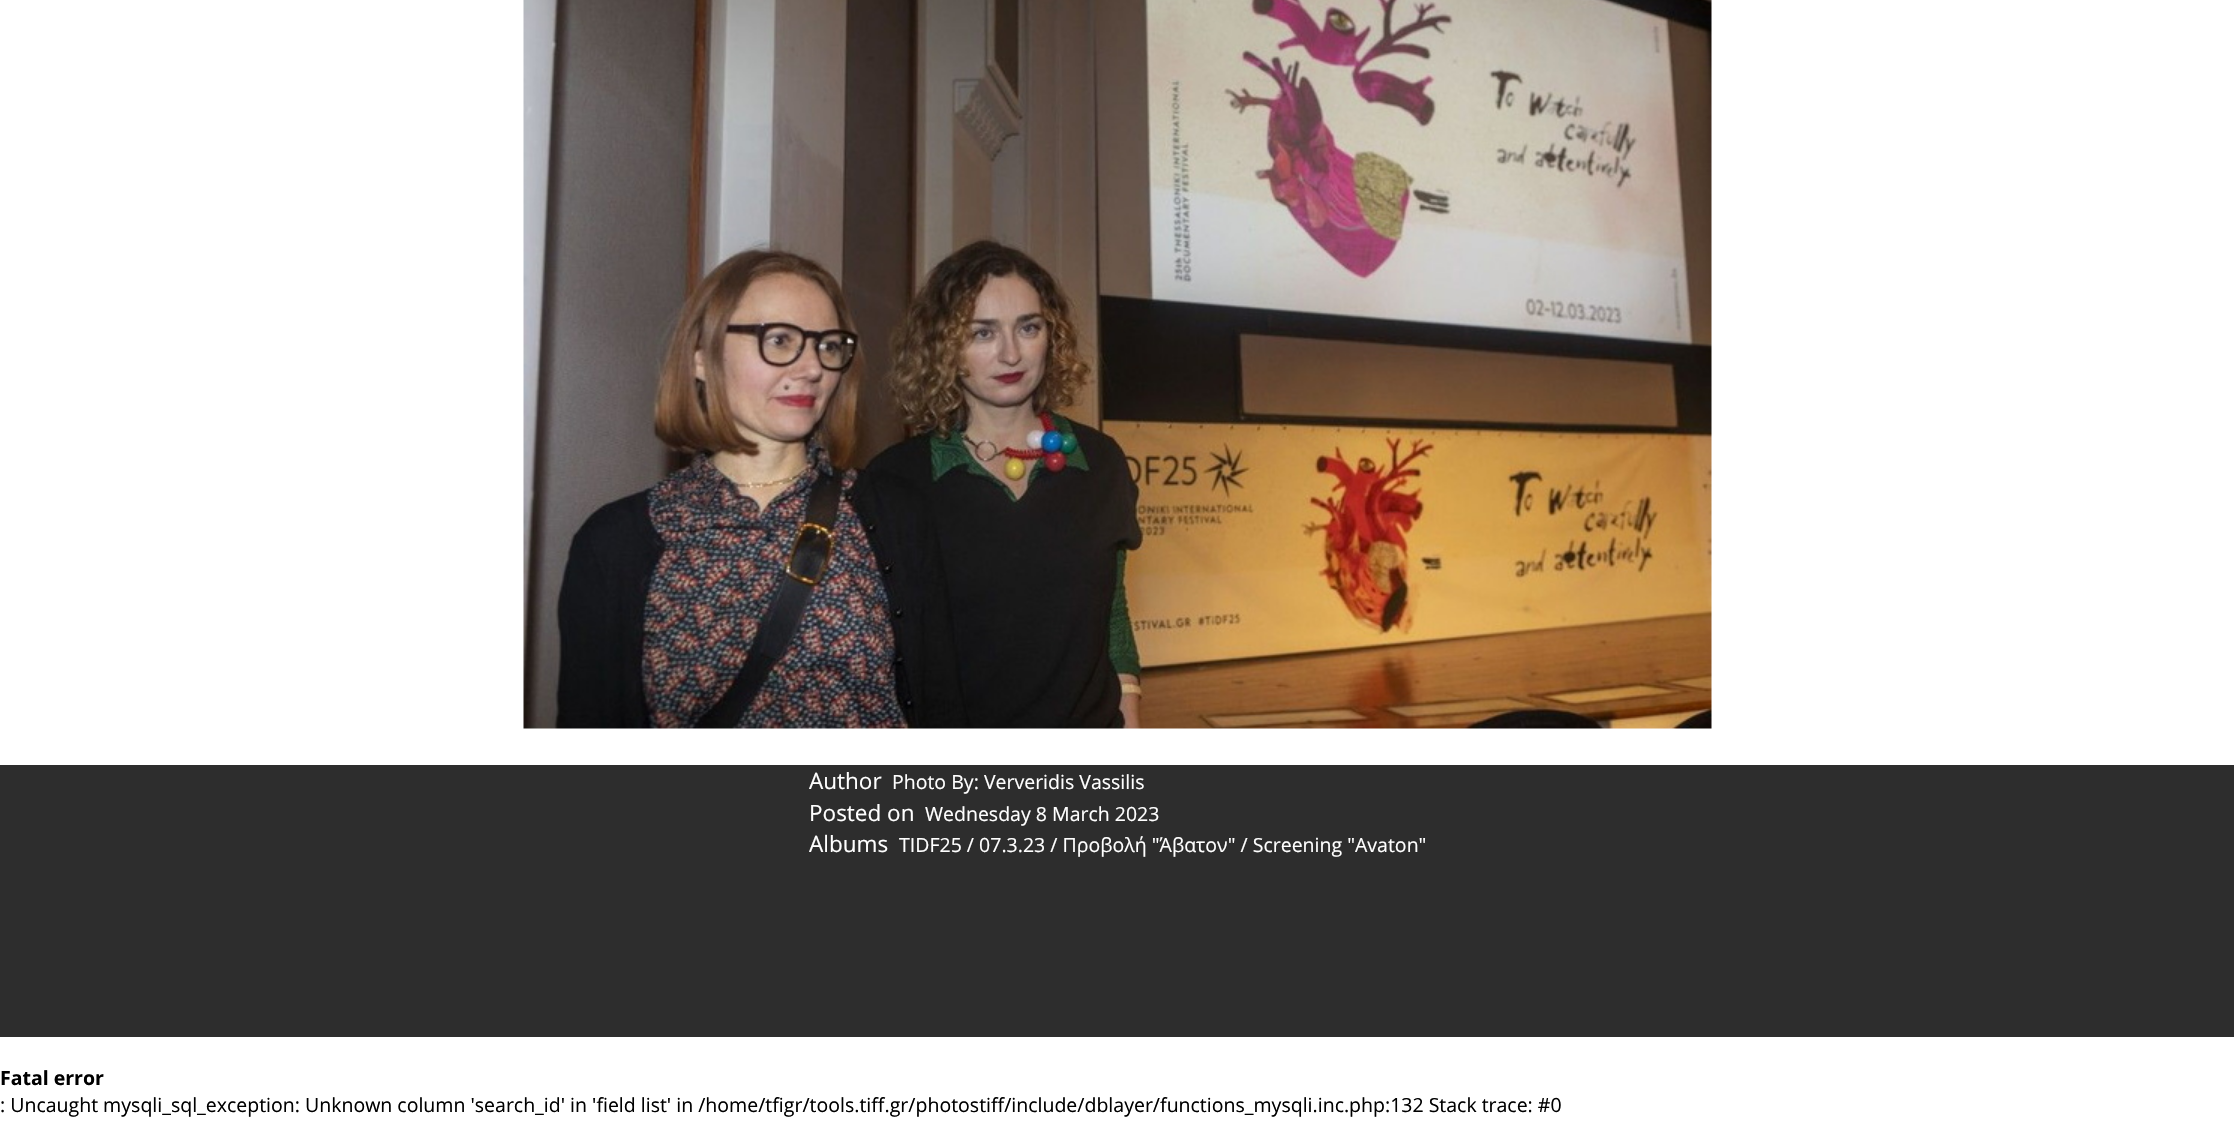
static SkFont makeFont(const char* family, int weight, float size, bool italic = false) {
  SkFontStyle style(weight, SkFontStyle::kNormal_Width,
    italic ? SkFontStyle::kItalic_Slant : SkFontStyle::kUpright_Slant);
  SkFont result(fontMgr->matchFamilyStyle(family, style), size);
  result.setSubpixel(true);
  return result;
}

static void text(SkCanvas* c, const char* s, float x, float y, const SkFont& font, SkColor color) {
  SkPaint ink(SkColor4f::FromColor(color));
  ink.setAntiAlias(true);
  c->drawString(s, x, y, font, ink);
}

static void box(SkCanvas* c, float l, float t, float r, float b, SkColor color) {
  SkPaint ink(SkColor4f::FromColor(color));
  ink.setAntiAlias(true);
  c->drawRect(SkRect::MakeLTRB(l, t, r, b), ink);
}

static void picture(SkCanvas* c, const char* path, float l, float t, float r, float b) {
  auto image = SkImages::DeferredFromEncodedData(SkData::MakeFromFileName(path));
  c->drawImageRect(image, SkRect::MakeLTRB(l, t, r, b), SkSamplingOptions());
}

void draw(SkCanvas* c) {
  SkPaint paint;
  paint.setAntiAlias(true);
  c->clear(0xffffffff);
  picture(c, "img_01.png", 523, 0, 1712, 729);
  box(c, 0, 765, 2234, 1037, 0xff2d2d2d);
  SkFont face1 = makeFont("Open Sans", 400, 22.5f);
  text(c, "Author", 809, 789, face1, 0xffffffff);
  SkFont face2 = makeFont("Open Sans", 400, 19.5f);
  text(c, "Photo By: Ververidis Vassilis", 892, 789, face2, 0xffffffff);
  text(c, "Posted on", 809, 821, face1, 0xffffffff);
  text(c, "Wednesday 8 March 2023", 925, 821, face2, 0xffffffff);
  text(c, "Albums", 809, 852, face1, 0xffffffff);
  text(c, "TIDF25 / 07.3.23 / Προβολή \"Άβατον\" / Screening \"Avaton\"", 899, 852, face2, 0xffffffff);
  SkFont face3 = makeFont("Open Sans", 700, 19.5f);
  text(c, "Fatal error", 0, 1085, face3, 0xff000000);
  text(c, ": Uncaught mysqli_sql_exception: Unknown column 'search_id' in 'field list' in /home/tfigr/tools.tiff.gr/photostiff/include/dblayer/functions_mysqli.inc.php:132 Stack trace: #0", 0, 1112, face2, 0xff000000);
}
